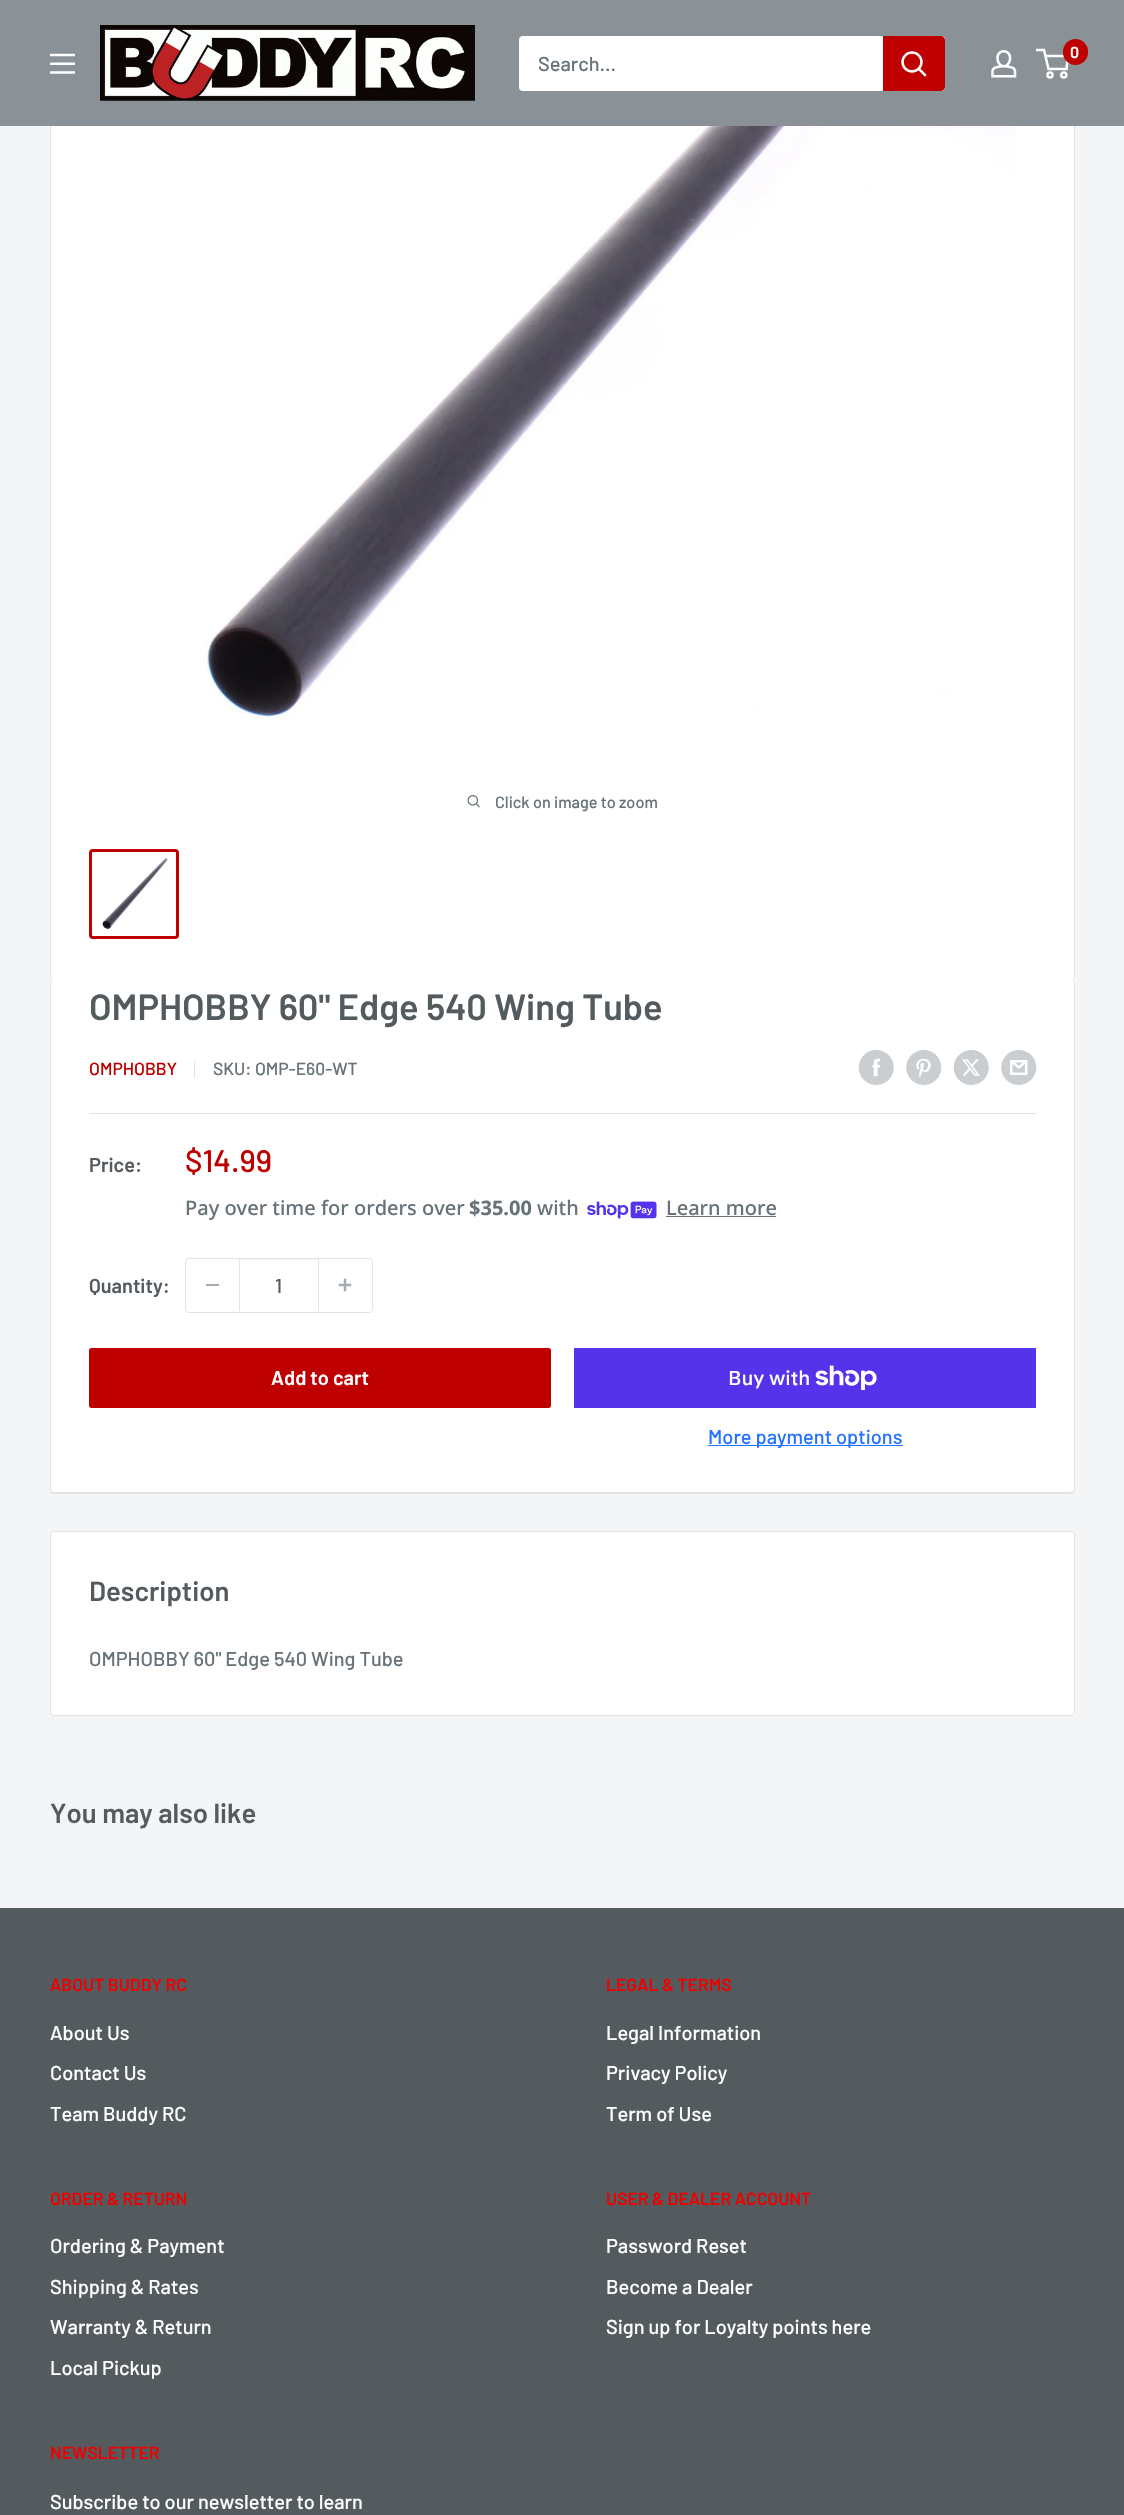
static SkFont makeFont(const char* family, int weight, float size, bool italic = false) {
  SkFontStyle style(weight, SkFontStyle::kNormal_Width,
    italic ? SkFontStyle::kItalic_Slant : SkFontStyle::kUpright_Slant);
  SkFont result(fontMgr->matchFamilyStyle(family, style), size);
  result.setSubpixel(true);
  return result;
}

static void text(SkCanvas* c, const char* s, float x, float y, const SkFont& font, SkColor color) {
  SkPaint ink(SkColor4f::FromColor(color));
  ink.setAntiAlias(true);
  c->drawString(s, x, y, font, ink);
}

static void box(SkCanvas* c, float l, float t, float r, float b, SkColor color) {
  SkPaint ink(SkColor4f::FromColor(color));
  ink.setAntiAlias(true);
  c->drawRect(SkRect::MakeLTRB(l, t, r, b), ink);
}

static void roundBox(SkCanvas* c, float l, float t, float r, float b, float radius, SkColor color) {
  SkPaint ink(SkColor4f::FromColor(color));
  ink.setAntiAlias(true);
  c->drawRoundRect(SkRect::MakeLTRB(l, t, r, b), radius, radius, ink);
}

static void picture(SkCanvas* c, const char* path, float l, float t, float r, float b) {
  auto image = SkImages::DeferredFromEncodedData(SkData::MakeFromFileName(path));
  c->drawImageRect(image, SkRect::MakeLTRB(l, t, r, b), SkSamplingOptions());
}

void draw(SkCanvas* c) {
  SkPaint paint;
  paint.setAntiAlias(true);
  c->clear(0xfff3f5f6);
  paint.setColor(0xffffffff);
  c->drawRoundRect(SkRect::MakeLTRB(50.5f, -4.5f, 1074.5f, 979.5f), 3.5f, 3.5f, paint);
  paint.setStyle(SkPaint::kStroke_Style);
  paint.setStrokeWidth(1);
  paint.setColor(0xffe1e3e4);
  c->drawRoundRect(SkRect::MakeLTRB(50.5f, -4.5f, 1074.5f, 979.5f), 3.5f, 3.5f, paint);
  box(c, 0, 0, 1124, 126, 0xff8a9297);
  picture(c, "img_01.png", 50, 53, 75, 74);
  picture(c, "img_02.png", 100, 25, 475, 101);
  roundBox(c, 519, 36, 945, 91, 4, 0xffffffff);
  SkFont face1 = makeFont("Barlow", 500, 20);
  text(c, "Search...", 538, 71, face1, 0xff677279);
  paint.setStyle(SkPaint::kFill_Style);
  paint.setColor(0xffbe0000);
  c->drawPath(SkPathBuilder().moveTo(883, 36).lineTo(941, 36).cubicTo(943, 36, 945, 38, 945, 40).lineTo(945, 87).cubicTo(945, 89, 943, 91, 941, 91).lineTo(883, 91).close().detach(), paint);
  paint.setStyle(SkPaint::kStroke_Style);
  paint.setStrokeWidth(2.5f);
  paint.setStrokeCap(SkPaint::kSquare_Cap);
  paint.setColor(0xffffffff);
  c->drawPath(SkPathBuilder().moveTo(925, 75).lineTo(919, 69).detach(), paint);
  paint.setStrokeCap(SkPaint::kButt_Cap);
  c->drawCircle(912, 62, 9.5f, paint);
  picture(c, "img_03.png", 991, 50, 1017, 78);
  c->drawCircle(1050, 75, 2.5f, paint);
  c->drawCircle(1063.8f, 75, 2.5f, paint);
  c->drawPath(SkPathBuilder().moveTo(1045.5f, 56).lineTo(1068, 56).lineTo(1066.5f, 69).lineTo(1048.5f, 69).lineTo(1044, 50).lineTo(1036, 50).detach(), paint);
  roundBox(c, 1063, 39, 1088, 65, 12.5f, 0xffbe0000);
  SkFont face2 = makeFont("Barlow", 600, 16);
  text(c, "0", 1070, 58, face2, 0xffffffff);
  picture(c, "img_04.png", 205, 126, 1017, 721);
  picture(c, "img_05.png", 467, 795, 480, 808);
  SkFont face3 = makeFont("Barlow", 500, 16.25f);
  text(c, "Click on image to zoom", 495, 808, face3, 0xff677279);
  paint.setStrokeWidth(3);
  paint.setColor(0xffbe0000);
  c->drawRoundRect(SkRect::MakeLTRB(90.5f, 850.5f, 177.5f, 937.5f), 2.5f, 2.5f, paint);
  picture(c, "img_06.png", 102, 856, 174, 933);
  paint.setStyle(SkPaint::kFill_Style);
  paint.setColor(0xffffffff);
  c->drawPath(SkPathBuilder().moveTo(54, 979).cubicTo(51, 979, 50, 981, 50, 984).cubicTo(50, 982, 52, 980, 54, 980).lineTo(1071, 980).cubicTo(1073, 980, 1075, 982, 1075, 984).cubicTo(1075, 981, 1074, 979, 1071, 979).close().detach(), paint);
  roundBox(c, 50, 980, 1075, 1494, 4, 0xffffffff);
  paint.setColor(0xffe1e3e4);
  c->drawPath(SkPathBuilder(SkPathFillType::kEvenOdd).moveTo(54, 980).lineTo(1071, 980).cubicTo(1073, 980, 1075, 982, 1075, 984).lineTo(1075, 1490).cubicTo(1075, 1492, 1073, 1494, 1071, 1494).lineTo(54, 1494).cubicTo(52, 1494, 50, 1492, 50, 1490).lineTo(50, 984).cubicTo(50, 982, 52, 980, 54, 980).close().moveTo(54, 980).lineTo(1071, 980).cubicTo(1073, 980, 1074, 982, 1074, 984).lineTo(1074, 1490).cubicTo(1074, 1491, 1073, 1492, 1071, 1492).lineTo(54, 1492).cubicTo(52, 1492, 51, 1491, 51, 1490).lineTo(51, 984).cubicTo(51, 982, 52, 980, 54, 980).close().detach(), paint);
  SkFont face4 = makeFont("Barlow", 600, 36.25f);
  text(c, "OMPHOBBY 60\" Edge 540 Wing Tube", 89, 1020, face4, 0xff545b5f);
  SkFont face5 = makeFont("Barlow", 500, 17.5f);
  text(c, "OMPHOBBY", 89, 1075, face5, 0xffbe0000);
  box(c, 194, 1061, 195, 1078, 0xffe1e3e4);
  text(c, "SKU: OMP-E60-WT", 213, 1075, face5, 0xff677279);
  picture(c, "img_07.png", 858, 1050, 894, 1085);
  picture(c, "img_08.png", 906, 1050, 942, 1085);
  picture(c, "img_09.png", 953, 1050, 989, 1085);
  picture(c, "img_10.png", 1001, 1050, 1037, 1085);
  box(c, 89, 1113, 1036, 1114, 0xffe1e3e4);
  SkFont face6 = makeFont("Barlow", 600, 20);
  text(c, "Price:", 89, 1172, face6, 0xff545b5f);
  SkFont face7 = makeFont("Barlow", 500, 31);
  text(c, "$14.99", 185, 1172, face7, 0xffbe0000);
  SkFont face8 = makeFont("Noto Sans", 500, 20);
  text(c, "Pay over time for orders over", 185, 1215, face8, 0xff677279);
  SkFont face9 = makeFont("Noto Sans", 700, 20);
  text(c, "$35.00", 469, 1215, face9, 0xff677279);
  text(c, "with", 537, 1215, face8, 0xff677279);
  picture(c, "img_11.png", 587, 1201, 657, 1219);
  text(c, "Learn more", 666, 1215, face8, 0xff677279);
  box(c, 666, 1216, 776, 1217, 0xff677279);
  text(c, "Quantity:", 89, 1293, face6, 0xff545b5f);
  paint.setStyle(SkPaint::kStroke_Style);
  paint.setStrokeWidth(1);
  c->drawRoundRect(SkRect::MakeLTRB(185.5f, 1258.5f, 372.5f, 1312.5f), 3.5f, 3.5f, paint);
  box(c, 206, 1284, 219, 1286, 0xffa4aaaf);
  box(c, 240, 1259, 318, 1260, 0xfff3f4f4);
  box(c, 318, 1259, 319, 1311, 0xffe1e3e4);
  box(c, 239, 1259, 240, 1311, 0xffe1e3e4);
  text(c, "1", 275, 1293, face1, 0xff545b5f);
  picture(c, "img_12.png", 338, 1278, 352, 1292);
  roundBox(c, 89, 1348, 551, 1408, 2.5f, 0xffbe0000);
  text(c, "Add to cart", 271, 1385, face6, 0xffffffff);
  box(c, 574, 1348, 1036, 1408, 0xff5433eb);
  SkFont face10 = makeFont("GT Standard", 500, 20);
  text(c, "Buy with", 728, 1385, face10, 0xffffffff);
  picture(c, "img_13.png", 815, 1365, 877, 1390);
  box(c, 708, 1445, 903, 1446, 0xff2472ff);
  text(c, "More payment options", 708, 1444, face1, 0xff2472ff);
  paint.setStyle(SkPaint::kFill_Style);
  paint.setColor(0xffffffff);
  c->drawRoundRect(SkRect::MakeLTRB(50.5f, 1531.5f, 1074.5f, 1715.5f), 3.5f, 3.5f, paint);
  paint.setStyle(SkPaint::kStroke_Style);
  paint.setColor(0xffe1e3e4);
  c->drawRoundRect(SkRect::MakeLTRB(50.5f, 1531.5f, 1074.5f, 1715.5f), 3.5f, 3.5f, paint);
  SkFont face11 = makeFont("Barlow", 600, 27.5f);
  text(c, "Description", 89, 1601, face11, 0xff545b5f);
  text(c, "OMPHOBBY 60\" Edge 540 Wing Tube", 89, 1666, face1, 0xff677279);
  text(c, "You may also like", 50, 1823, face11, 0xff545b5f);
  box(c, 0, 1908, 1124, 2515, 0xff545b5f);
  SkFont face12 = makeFont("Barlow", 600, 17.5f);
  text(c, "ABOUT BUDDY RC", 50, 1991, face12, 0xffee0000);
  text(c, "About Us", 50, 2040, face1, 0xffffffff);
  text(c, "Contact Us", 50, 2080, face1, 0xffffffff);
  text(c, "Team Buddy RC", 50, 2121, face1, 0xffffffff);
  text(c, "LEGAL & TERMS", 606, 1991, face12, 0xffee0000);
  text(c, "Legal Information", 606, 2040, face1, 0xffffffff);
  text(c, "Privacy Policy", 606, 2080, face1, 0xffffffff);
  text(c, "Term of Use", 606, 2121, face1, 0xffffffff);
  text(c, "ORDER & RETURN", 50, 2205, face12, 0xffee0000);
  text(c, "Ordering & Payment", 50, 2253, face1, 0xffffffff);
  text(c, "Shipping & Rates", 50, 2294, face1, 0xffffffff);
  text(c, "Warranty & Return", 50, 2334, face1, 0xffffffff);
  text(c, "Local Pickup", 50, 2375, face1, 0xffffffff);
  text(c, "USER & DEALER ACCOUNT", 606, 2205, face12, 0xffee0000);
  text(c, "Password Reset", 606, 2253, face1, 0xffffffff);
  text(c, "Become a Dealer", 606, 2294, face1, 0xffffffff);
  text(c, "Sign up for Loyalty points here", 606, 2334, face1, 0xffffffff);
  text(c, "NEWSLETTER", 50, 2459, face12, 0xffee0000);
  text(c, "Subscribe to our newsletter to learn", 50, 2509, face1, 0xffffffff);
}
